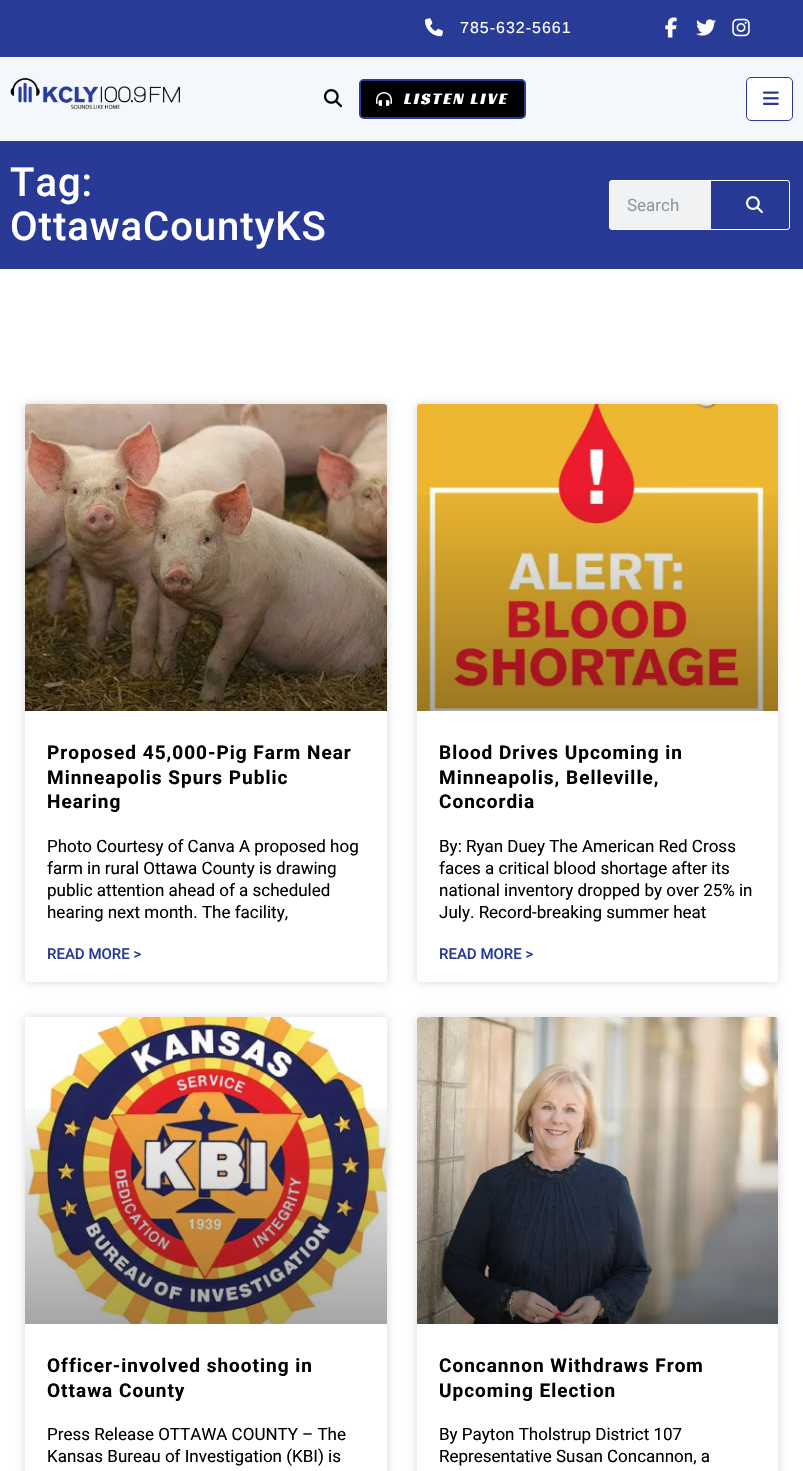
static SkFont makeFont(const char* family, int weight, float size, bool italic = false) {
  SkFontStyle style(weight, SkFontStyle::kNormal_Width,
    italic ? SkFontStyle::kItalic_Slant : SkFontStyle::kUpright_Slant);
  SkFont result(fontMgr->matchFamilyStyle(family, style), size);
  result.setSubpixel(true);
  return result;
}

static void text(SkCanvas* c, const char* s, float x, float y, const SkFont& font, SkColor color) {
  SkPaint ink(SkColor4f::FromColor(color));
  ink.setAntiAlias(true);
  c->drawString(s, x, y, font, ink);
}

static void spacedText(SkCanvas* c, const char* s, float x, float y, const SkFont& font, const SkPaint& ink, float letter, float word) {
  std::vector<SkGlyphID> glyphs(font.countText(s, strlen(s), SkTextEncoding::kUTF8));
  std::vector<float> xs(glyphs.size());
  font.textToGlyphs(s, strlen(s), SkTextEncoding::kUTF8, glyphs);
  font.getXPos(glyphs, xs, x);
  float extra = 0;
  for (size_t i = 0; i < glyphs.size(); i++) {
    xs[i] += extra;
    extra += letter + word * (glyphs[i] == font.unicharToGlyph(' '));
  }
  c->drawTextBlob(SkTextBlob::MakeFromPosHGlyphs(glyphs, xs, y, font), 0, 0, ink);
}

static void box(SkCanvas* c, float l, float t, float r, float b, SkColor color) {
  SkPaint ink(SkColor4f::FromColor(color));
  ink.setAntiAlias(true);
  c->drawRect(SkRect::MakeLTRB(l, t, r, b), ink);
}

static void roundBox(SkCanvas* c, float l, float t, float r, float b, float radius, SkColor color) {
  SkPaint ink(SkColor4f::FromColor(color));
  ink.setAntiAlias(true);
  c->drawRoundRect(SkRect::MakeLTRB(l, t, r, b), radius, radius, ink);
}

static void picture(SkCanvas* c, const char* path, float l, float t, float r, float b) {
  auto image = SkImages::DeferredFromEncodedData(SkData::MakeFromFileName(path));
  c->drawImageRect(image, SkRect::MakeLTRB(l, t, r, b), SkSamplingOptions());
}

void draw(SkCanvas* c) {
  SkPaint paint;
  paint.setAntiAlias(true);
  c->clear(0xffffffff);
  box(c, 0, 0, 803, 57, 0xff283b97);
  picture(c, "img_01.png", 425, 18, 443, 37);
  SkFont face1 = makeFont("Liberation Sans", 400, 16);
  paint.setColor(0xffffffff);
  spacedText(c, "785-632-5661", 460, 33, face1, paint, 1, 0);
  picture(c, "img_02.png", 665, 17, 677, 38);
  picture(c, "img_03.png", 696, 19, 716, 36);
  picture(c, "img_04.png", 732, 18, 750, 37);
  box(c, 0, 57, 803, 141, 0xfff4f7fb);
  picture(c, "img_05.png", 10, 77, 180, 109);
  picture(c, "img_06.png", 323, 89, 342, 108);
  paint.setColor(0xff000000);
  c->drawRoundRect(SkRect::MakeLTRB(360, 80, 525, 118), 4, 4, paint);
  paint.setStyle(SkPaint::kStroke_Style);
  paint.setStrokeWidth(2);
  paint.setColor(0xff283b97);
  c->drawRoundRect(SkRect::MakeLTRB(360, 80, 525, 118), 4, 4, paint);
  picture(c, "img_07.png", 376, 92, 392, 106);
  SkFont face2 = makeFont("Racing Sans One", 400, 16);
  paint.setStyle(SkPaint::kFill_Style);
  paint.setColor(0xffffffff);
  spacedText(c, "LISTEN LIVE", 404, 104, face2, paint, 2, 0);
  c->drawRoundRect(SkRect::MakeLTRB(746.5f, 77.5f, 792.5f, 120.5f), 4.5f, 4.5f, paint);
  paint.setStyle(SkPaint::kStroke_Style);
  paint.setStrokeWidth(1);
  paint.setColor(0xff283a96);
  c->drawRoundRect(SkRect::MakeLTRB(746.5f, 77.5f, 792.5f, 120.5f), 4.5f, 4.5f, paint);
  picture(c, "img_08.png", 763, 91, 779, 105);
  box(c, 0, 141, 803, 269, 0xff283a96);
  SkFont face3 = makeFont("Roboto", 500, 40);
  paint.setStyle(SkPaint::kFill_Style);
  paint.setColor(0xffffffff);
  spacedText(c, "Tag:", 10, 196, face3, paint, 1, 0);
  spacedText(c, "OttawaCountyKS", 10, 240, face3, paint, 1, 0);
  paint.setColor(0xfff1f2f3);
  c->drawRoundRect(SkRect::MakeLTRB(609.5f, 180.5f, 789.5f, 229.5f), 2.5f, 2.5f, paint);
  paint.setStyle(SkPaint::kStroke_Style);
  paint.setColor(0xffffffff);
  c->drawRoundRect(SkRect::MakeLTRB(609.5f, 180.5f, 789.5f, 229.5f), 2.5f, 2.5f, paint);
  SkFont face4 = makeFont("Roboto", 400, 17);
  text(c, "Search", 627, 211, face4, 0xff93969a);
  paint.setStyle(SkPaint::kFill_Style);
  paint.setColor(0xff283a96);
  c->drawPath(SkPathBuilder().moveTo(711, 181).lineTo(787, 181).cubicTo(788, 181, 789, 182, 789, 183).lineTo(789, 227).cubicTo(789, 228, 788, 229, 787, 229).lineTo(711, 229).close().detach(), paint);
  picture(c, "img_09.png", 746, 196, 763, 214);
  paint.setColor(0x26000000);
  paint.setMaskFilter(SkMaskFilter::MakeBlur(kNormal_SkBlurStyle, 5));
  c->drawRoundRect(SkRect::MakeLTRB(25, 404, 387, 982), 3, 3, paint);
  paint.setMaskFilter(nullptr);
  roundBox(c, 25, 404, 387, 982, 3, 0xffffffff);
  picture(c, "img_10.png", 25, 404, 387, 711);
  {
    const SkColor colors[] = {0x59000000, 0x00000000};
    const float stops[] = {0, 0.75f};
    const SkPoint ends[] = {{206, 711}, {206, 404}};
    paint.setShader(SkGradientShader::MakeLinear(ends, colors, stops, 2, SkTileMode::kClamp));
    paint.setAlpha(255);
  }
  c->drawRect(SkRect::MakeLTRB(25, 495, 387, 711), paint);
  SkFont face5 = makeFont("Roboto", 700, 19);
  paint.setShader(nullptr);
  paint.setColor(0xff000000);
  spacedText(c, "Proposed 45,000-Pig Farm Near", 47, 759, face5, paint, 1, 0);
  spacedText(c, "Minneapolis Spurs Public", 47, 784, face5, paint, 1, 0);
  spacedText(c, "Hearing", 47, 808, face5, paint, 1, 0);
  text(c, "Photo Courtesy of Canva A proposed hog", 47, 852, face4, 0xff000000);
  text(c, "farm in rural Ottawa County is drawing", 47, 874, face4, 0xff000000);
  text(c, "public attention ahead of a scheduled", 47, 896, face4, 0xff000000);
  text(c, "hearing next month. The facility,", 47, 918, face4, 0xff000000);
  SkFont face6 = makeFont("Roboto", 500, 15);
  text(c, "READ MORE >", 47, 959, face6, 0xff283a96);
  paint.setColor(0x26000000);
  paint.setMaskFilter(SkMaskFilter::MakeBlur(kNormal_SkBlurStyle, 5));
  c->drawRoundRect(SkRect::MakeLTRB(417, 404, 778, 982), 3, 3, paint);
  paint.setMaskFilter(nullptr);
  roundBox(c, 417, 404, 778, 982, 3, 0xffffffff);
  picture(c, "img_11.png", 417, 404, 778, 711);
  {
    const SkColor colors[] = {0x59000000, 0x00000000};
    const float stops[] = {0, 0.75f};
    const SkPoint ends[] = {{598, 711}, {598, 404}};
    paint.setShader(SkGradientShader::MakeLinear(ends, colors, stops, 2, SkTileMode::kClamp));
    paint.setAlpha(255);
  }
  c->drawRect(SkRect::MakeLTRB(417, 495, 778, 711), paint);
  paint.setShader(nullptr);
  paint.setColor(0xff000000);
  spacedText(c, "Blood Drives Upcoming in", 439, 759, face5, paint, 1, 0);
  spacedText(c, "Minneapolis, Belleville,", 439, 784, face5, paint, 1, 0);
  spacedText(c, "Concordia", 439, 808, face5, paint, 1, 0);
  text(c, "By: Ryan Duey The American Red Cross", 439, 852, face4, 0xff000000);
  text(c, "faces a critical blood shortage after its", 439, 874, face4, 0xff000000);
  text(c, "national inventory dropped by over 25% in", 439, 896, face4, 0xff000000);
  text(c, "July. Record-breaking summer heat", 439, 918, face4, 0xff000000);
  text(c, "READ MORE >", 439, 959, face6, 0xff283a96);
  paint.setColor(0x26000000);
  paint.setMaskFilter(SkMaskFilter::MakeBlur(kNormal_SkBlurStyle, 5));
  c->drawRoundRect(SkRect::MakeLTRB(25, 1017, 387, 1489), 3, 3, paint);
  paint.setMaskFilter(nullptr);
  roundBox(c, 25, 1017, 387, 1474, 3, 0xffffffff);
  picture(c, "img_12.png", 26, 1017, 387, 1324);
  {
    const SkColor colors[] = {0x59000000, 0x00000000};
    const float stops[] = {0, 0.75f};
    const SkPoint ends[] = {{206, 1324}, {206, 1017}};
    paint.setShader(SkGradientShader::MakeLinear(ends, colors, stops, 2, SkTileMode::kClamp));
    paint.setAlpha(255);
  }
  c->drawRect(SkRect::MakeLTRB(25, 1108, 387, 1324), paint);
  paint.setShader(nullptr);
  paint.setColor(0xff000000);
  spacedText(c, "Officer-involved shooting in", 47, 1372, face5, paint, 1, 0);
  spacedText(c, "Ottawa County", 47, 1397, face5, paint, 1, 0);
  text(c, "Press Release OTTAWA COUNTY – The", 47, 1440, face4, 0xff000000);
  text(c, "Kansas Bureau of Investigation (KBI) is", 47, 1462, face4, 0xff000000);
  paint.setColor(0x26000000);
  paint.setMaskFilter(SkMaskFilter::MakeBlur(kNormal_SkBlurStyle, 5));
  c->drawRoundRect(SkRect::MakeLTRB(417, 1017, 778, 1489), 3, 3, paint);
  paint.setMaskFilter(nullptr);
  roundBox(c, 417, 1017, 778, 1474, 3, 0xffffffff);
  picture(c, "img_13.png", 417, 1017, 778, 1324);
  {
    const SkColor colors[] = {0x59000000, 0x00000000};
    const float stops[] = {0, 0.75f};
    const SkPoint ends[] = {{598, 1324}, {598, 1017}};
    paint.setShader(SkGradientShader::MakeLinear(ends, colors, stops, 2, SkTileMode::kClamp));
    paint.setAlpha(255);
  }
  c->drawRect(SkRect::MakeLTRB(417, 1108, 778, 1324), paint);
  paint.setShader(nullptr);
  paint.setColor(0xff000000);
  spacedText(c, "Concannon Withdraws From", 439, 1372, face5, paint, 1, 0);
  spacedText(c, "Upcoming Election", 439, 1397, face5, paint, 1, 0);
  text(c, "By Payton Tholstrup District 107", 439, 1440, face4, 0xff000000);
  text(c, "Representative Susan Concannon, a", 439, 1462, face4, 0xff000000);
}
